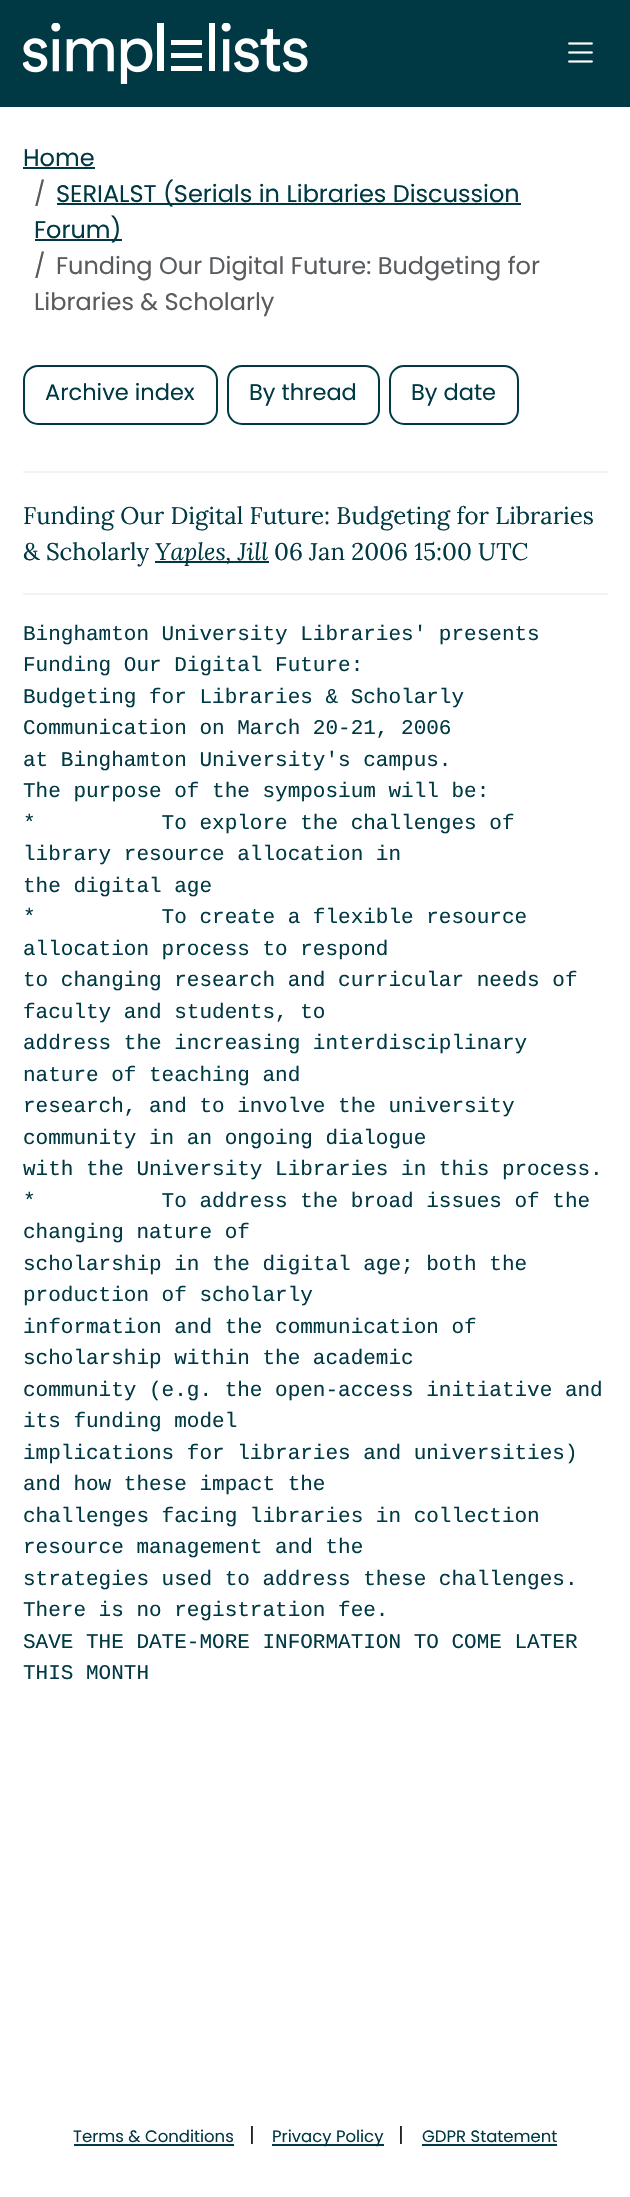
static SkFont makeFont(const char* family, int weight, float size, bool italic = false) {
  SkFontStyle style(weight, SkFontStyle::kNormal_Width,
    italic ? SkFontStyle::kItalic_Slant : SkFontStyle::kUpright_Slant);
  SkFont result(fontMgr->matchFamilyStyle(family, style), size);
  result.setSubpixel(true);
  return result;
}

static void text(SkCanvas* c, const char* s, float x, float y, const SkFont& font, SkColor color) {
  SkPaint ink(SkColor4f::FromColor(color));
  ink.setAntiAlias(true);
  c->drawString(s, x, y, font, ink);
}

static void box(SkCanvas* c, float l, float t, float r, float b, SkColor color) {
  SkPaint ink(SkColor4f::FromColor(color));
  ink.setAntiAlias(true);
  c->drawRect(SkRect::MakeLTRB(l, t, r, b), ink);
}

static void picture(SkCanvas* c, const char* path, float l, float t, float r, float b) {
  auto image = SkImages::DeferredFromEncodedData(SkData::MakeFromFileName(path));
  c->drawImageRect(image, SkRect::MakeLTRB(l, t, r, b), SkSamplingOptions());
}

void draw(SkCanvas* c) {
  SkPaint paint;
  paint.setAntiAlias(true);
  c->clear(0xffffffff);
  box(c, 0, 0, 630, 107, 0xff003944);
  picture(c, "img_01.png", 23, 23, 308, 84);
  picture(c, "img_02.png", 568, 42, 593, 63);
  SkFont face1 = makeFont("Poppins", 400, 24);
  text(c, "Home", 23, 166, face1, 0xff003944);
  box(c, 23, 167, 95, 169, 0xff003944);
  text(c, "/", 34, 202, face1, 0xff595c5f);
  box(c, 57, 203, 521, 205, 0xff003944);
  text(c, "SERIALST (Serials in Libraries Discussion", 56, 202, face1, 0xff003944);
  box(c, 35, 239, 122, 241, 0xff003944);
  text(c, "Forum)", 34, 238, face1, 0xff003944);
  text(c, "/", 34, 274, face1, 0xff595c5f);
  text(c, "Funding Our Digital Future: Budgeting for", 56, 274, face1, 0xff595c5f);
  text(c, "Libraries & Scholarly", 34, 310, face1, 0xff595c5f);
  paint.setStyle(SkPaint::kStroke_Style);
  paint.setStrokeWidth(2);
  paint.setColor(0xff003944);
  c->drawRoundRect(SkRect::MakeLTRB(24, 366, 217, 424), 14, 14, paint);
  SkFont face2 = makeFont("Poppins", 400, 22.5f);
  text(c, "Archive index", 45, 400, face2, 0xff003944);
  c->drawRoundRect(SkRect::MakeLTRB(228, 366, 379, 424), 14, 14, paint);
  text(c, "By thread", 249, 400, face2, 0xff003944);
  c->drawRoundRect(SkRect::MakeLTRB(390, 366, 518, 424), 14, 14, paint);
  text(c, "By date", 411, 400, face2, 0xff003944);
  box(c, 23, 471, 608, 473, 0xfff2f2f2);
  SkFont face3 = makeFont("Lora", 400, 24);
  text(c, "Funding Our Digital Future: Budgeting for Libraries", 23, 524, face3, 0xff003944);
  text(c, "& Scholarly", 23, 560, face3, 0xff003944);
  box(c, 155, 561, 269, 563, 0xff003944);
  SkFont face4 = makeFont("Lora", 400, 24, true);
  text(c, "Yaples, Jill", 155, 560, face4, 0xff003944);
  text(c, "06 Jan 2006 15:00 UTC", 274, 560, face3, 0xff003944);
  box(c, 23, 593, 608, 595, 0xfff2f2f2);
  SkFont face5 = makeFont("Liberation Mono", 400, 21);
  text(c, "Binghamton University Libraries' presents", 23, 640, face5, 0xff003944);
  text(c, "Funding Our Digital Future:", 23, 671, face5, 0xff003944);
  text(c, "Budgeting for Libraries & Scholarly", 23, 703, face5, 0xff003944);
  text(c, "Communication on March 20-21, 2006", 23, 734, face5, 0xff003944);
  text(c, "at Binghamton University's campus.", 23, 766, face5, 0xff003944);
  text(c, "The purpose of the symposium will be:", 23, 797, face5, 0xff003944);
  text(c, "*          To explore the challenges of", 23, 829, face5, 0xff003944);
  text(c, "library resource allocation in", 23, 860, face5, 0xff003944);
  text(c, "the digital age", 23, 892, face5, 0xff003944);
  text(c, "*          To create a flexible resource", 23, 923, face5, 0xff003944);
  text(c, "allocation process to respond", 23, 955, face5, 0xff003944);
  text(c, "to changing research and curricular needs of", 23, 986, face5, 0xff003944);
  text(c, "faculty and students, to", 23, 1018, face5, 0xff003944);
  text(c, "address the increasing interdisciplinary", 23, 1049, face5, 0xff003944);
  text(c, "nature of teaching and", 23, 1081, face5, 0xff003944);
  text(c, "research, and to involve the university", 23, 1112, face5, 0xff003944);
  text(c, "community in an ongoing dialogue", 23, 1144, face5, 0xff003944);
  text(c, "with the University Libraries in this process.", 23, 1175, face5, 0xff003944);
  text(c, "*          To address the broad issues of the", 23, 1207, face5, 0xff003944);
  text(c, "changing nature of", 23, 1238, face5, 0xff003944);
  text(c, "scholarship in the digital age; both the", 23, 1270, face5, 0xff003944);
  text(c, "production of scholarly", 23, 1301, face5, 0xff003944);
  text(c, "information and the communication of", 23, 1333, face5, 0xff003944);
  text(c, "scholarship within the academic", 23, 1364, face5, 0xff003944);
  text(c, "community (e.g. the open-access initiative and", 23, 1396, face5, 0xff003944);
  text(c, "its funding model", 23, 1427, face5, 0xff003944);
  text(c, "implications for libraries and universities)", 23, 1459, face5, 0xff003944);
  text(c, "and how these impact the", 23, 1490, face5, 0xff003944);
  text(c, "challenges facing libraries in collection", 23, 1522, face5, 0xff003944);
  text(c, "resource management and the", 23, 1553, face5, 0xff003944);
  text(c, "strategies used to address these challenges.", 23, 1585, face5, 0xff003944);
  text(c, "There is no registration fee.", 23, 1616, face5, 0xff003944);
  text(c, "SAVE THE DATE-MORE INFORMATION TO COME LATER", 23, 1648, face5, 0xff003944);
  text(c, "THIS MONTH", 23, 1679, face5, 0xff003944);
  SkFont face6 = makeFont("Poppins", 400, 16.5f);
  text(c, "Terms & Conditions", 73, 2142, face6, 0xff003944);
  box(c, 74, 2144, 234, 2146, 0xff003944);
  SkFont face7 = makeFont("Poppins", 400, 20);
  text(c, "|", 249, 2142, face7, 0xff212529);
  box(c, 272, 2144, 384, 2146, 0xff003944);
  text(c, "Privacy Policy", 272, 2142, face6, 0xff003944);
  text(c, "|", 398, 2142, face7, 0xff212529);
  text(c, "GDPR Statement", 422, 2142, face6, 0xff003944);
  box(c, 422, 2144, 557, 2146, 0xff003944);
}
